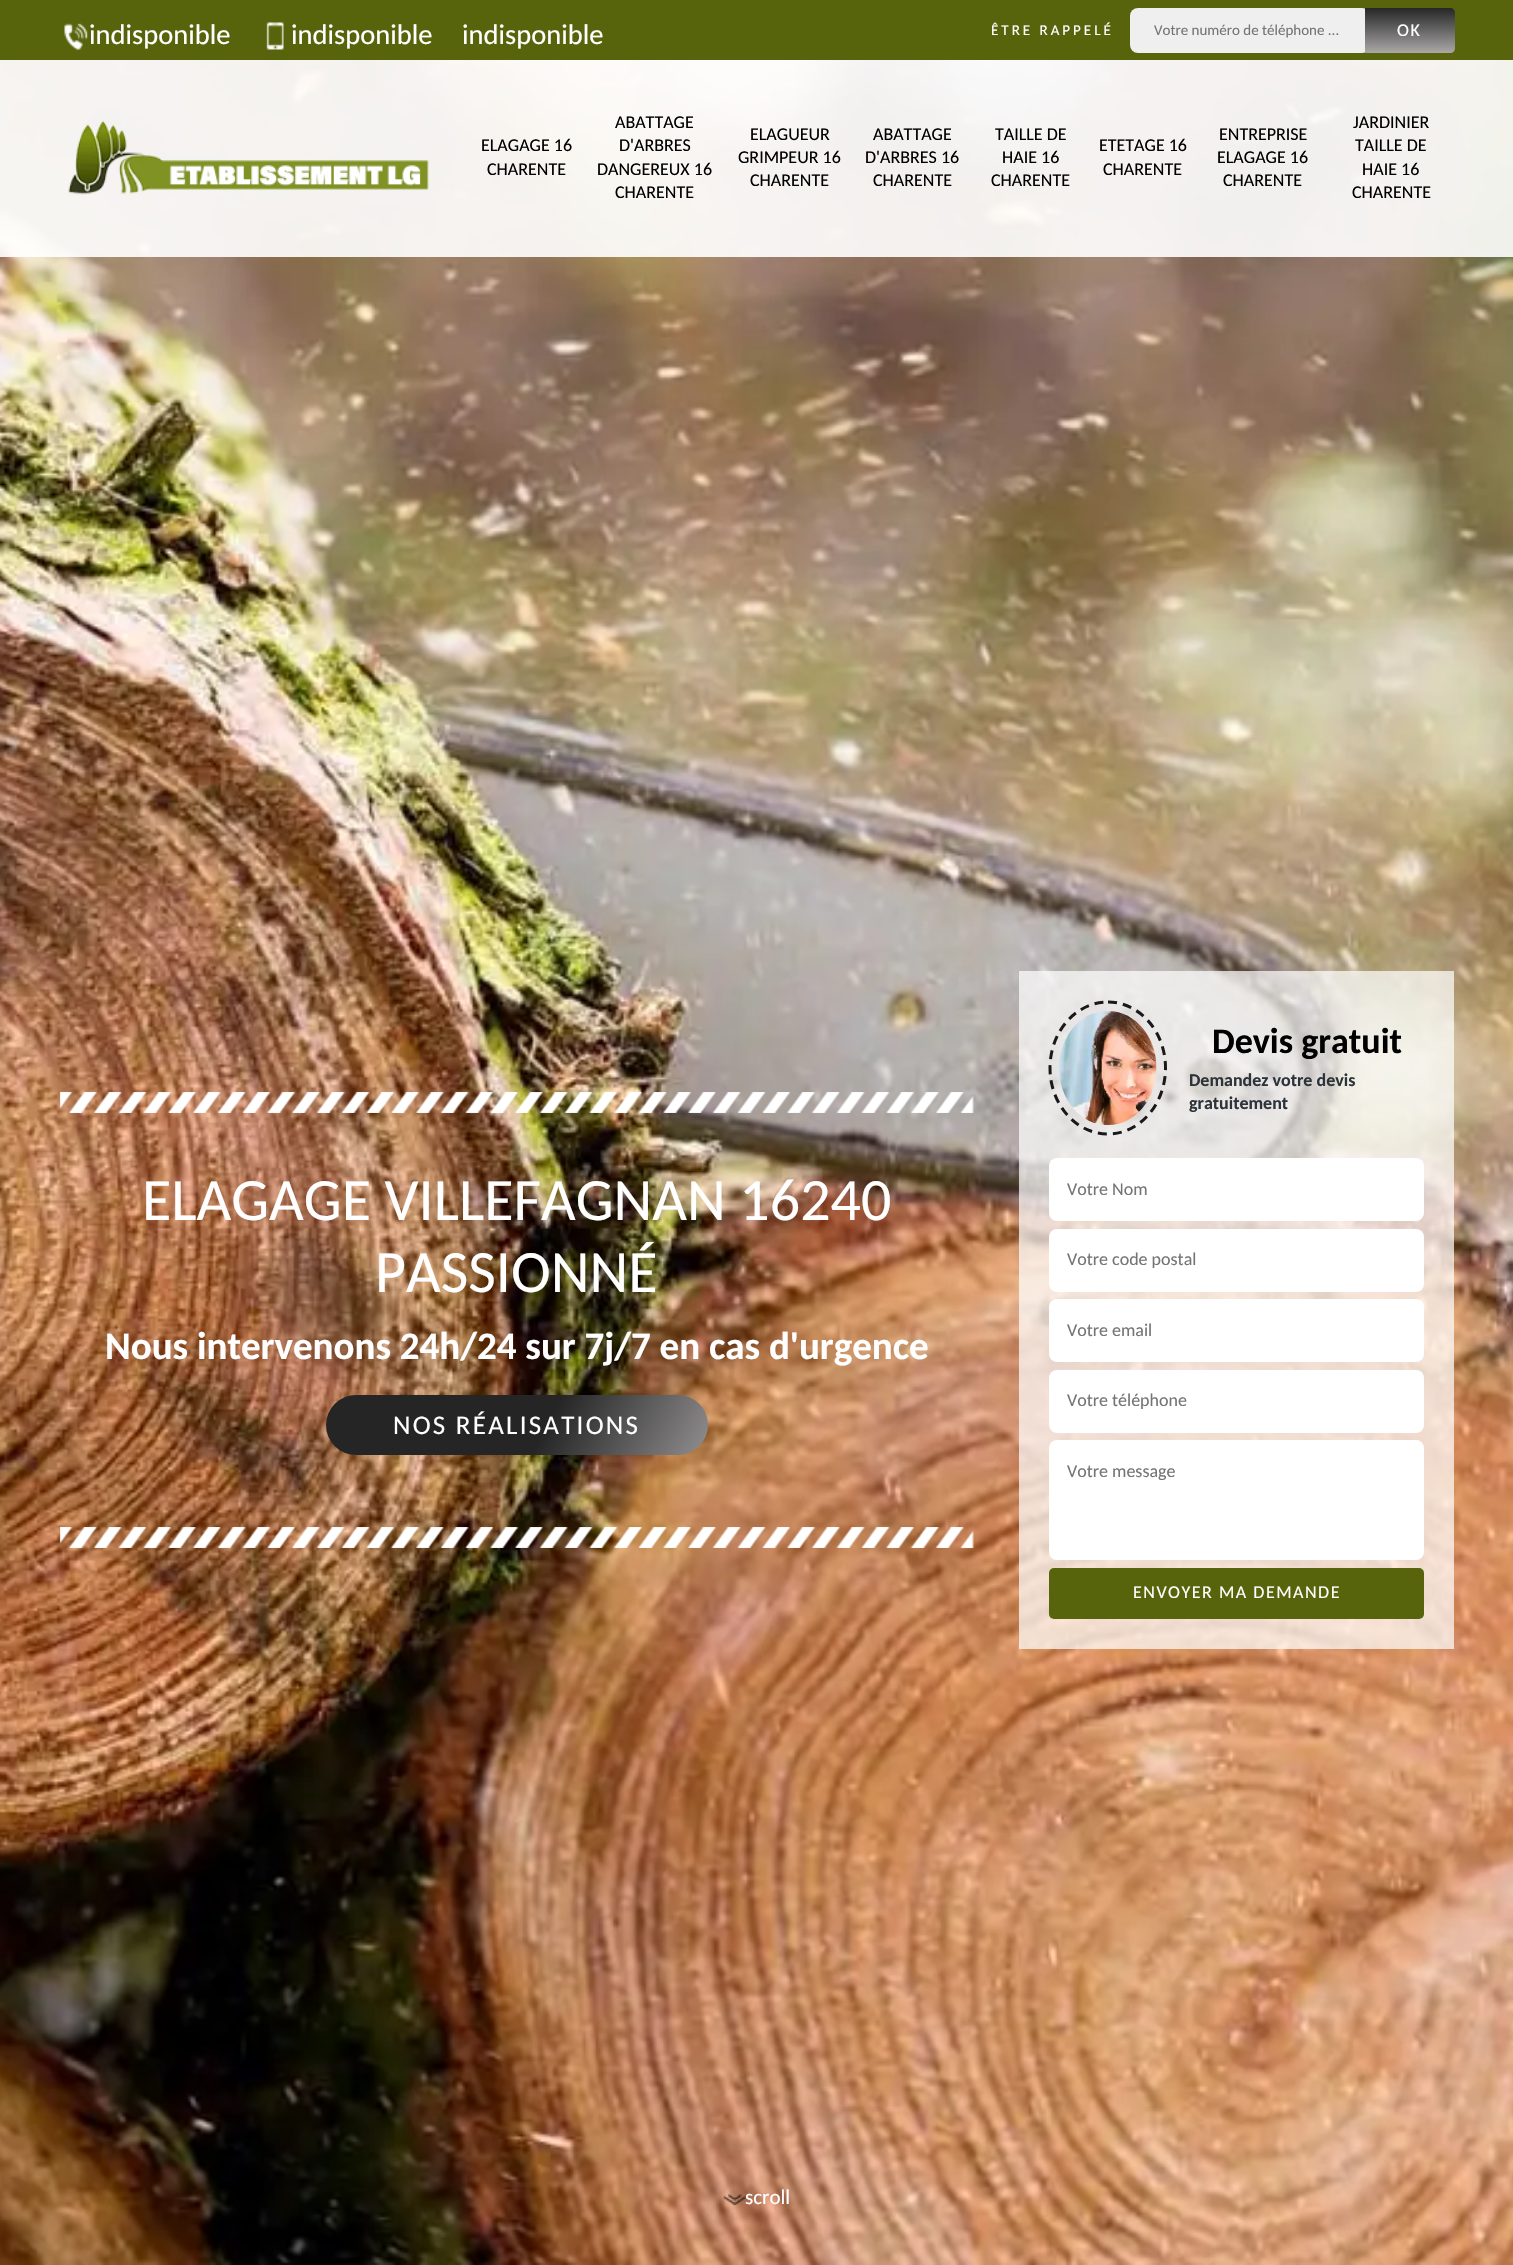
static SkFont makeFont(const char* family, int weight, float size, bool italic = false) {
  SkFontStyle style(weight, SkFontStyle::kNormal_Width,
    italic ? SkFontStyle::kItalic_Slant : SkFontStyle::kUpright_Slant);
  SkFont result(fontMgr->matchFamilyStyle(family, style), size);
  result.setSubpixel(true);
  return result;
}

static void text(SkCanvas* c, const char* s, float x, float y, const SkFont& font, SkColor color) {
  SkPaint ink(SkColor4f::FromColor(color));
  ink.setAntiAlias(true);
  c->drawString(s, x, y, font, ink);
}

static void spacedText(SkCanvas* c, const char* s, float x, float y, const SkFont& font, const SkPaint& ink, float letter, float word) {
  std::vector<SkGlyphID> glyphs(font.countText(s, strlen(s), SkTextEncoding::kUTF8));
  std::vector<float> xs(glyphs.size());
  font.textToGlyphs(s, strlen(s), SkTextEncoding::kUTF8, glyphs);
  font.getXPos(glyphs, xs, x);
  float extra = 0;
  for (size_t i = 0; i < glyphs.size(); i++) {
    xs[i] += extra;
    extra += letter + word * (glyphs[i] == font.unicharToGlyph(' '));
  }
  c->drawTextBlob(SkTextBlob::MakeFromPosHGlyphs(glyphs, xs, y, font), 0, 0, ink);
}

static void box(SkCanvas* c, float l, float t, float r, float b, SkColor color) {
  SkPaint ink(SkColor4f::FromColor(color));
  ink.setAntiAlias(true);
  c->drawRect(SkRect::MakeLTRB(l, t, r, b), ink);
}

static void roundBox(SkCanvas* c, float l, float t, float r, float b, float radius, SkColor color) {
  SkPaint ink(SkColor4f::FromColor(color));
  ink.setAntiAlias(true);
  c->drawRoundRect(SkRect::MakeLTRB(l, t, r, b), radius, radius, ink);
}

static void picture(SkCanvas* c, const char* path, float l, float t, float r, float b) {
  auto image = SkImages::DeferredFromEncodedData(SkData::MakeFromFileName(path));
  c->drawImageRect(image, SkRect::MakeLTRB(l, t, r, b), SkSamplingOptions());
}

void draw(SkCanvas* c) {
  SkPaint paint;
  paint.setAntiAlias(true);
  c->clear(0xffffffff);
  box(c, 0, 0, 1513, 60, 0xff58640b);
  picture(c, "img_01.png", 64, 23, 88, 50);
  SkFont face1 = makeFont("Carlito", 400, 28.5f);
  text(c, "indisponible", 89, 44, face1, 0xffffffff);
  picture(c, "img_02.png", 266, 22, 284, 50);
  text(c, "indisponible", 291, 44, face1, 0xffffffff);
  text(c, "indisponible", 462, 44, face1, 0xffffffff);
  SkFont face2 = makeFont("Carlito", 400, 15);
  paint.setColor(0xffffffff);
  spacedText(c, "ÊTRE RAPPELÉ", 991, 35, face2, paint, 3, 0);
  roundBox(c, 1130, 8, 1370, 53, 8, 0xffefefef);
  text(c, "Votre numéro de téléphone ...", 1154, 35, face2, 0xff757575);
  {
    const SkColor colors[] = {0xff252525, 0xffaaa7a7};
    const float stops[] = {0, 1};
    const SkPoint ends[] = {{1410, 7.5f}, {1410, 53}};
    paint.setShader(SkGradientShader::MakeLinear(ends, colors, stops, 2, SkTileMode::kClamp));
    paint.setAlpha(255);
  }
  c->drawPath(SkPathBuilder().moveTo(1365, 8).lineTo(1450, 8).cubicTo(1453, 8, 1455, 10, 1455, 13).lineTo(1455, 48).cubicTo(1455, 51, 1453, 53, 1450, 53).lineTo(1365, 53).close().detach(), paint);
  SkFont face3 = makeFont("Carlito", 400, 18);
  paint.setShader(nullptr);
  paint.setColor(0xffffffff);
  spacedText(c, "OK", 1397, 36, face3, paint, 1.5f, 0);
  picture(c, "img_04.png", 0, 60, 1513, 2265);
  box(c, 0, 60, 1513, 257, 0xe6ffffff);
  picture(c, "img_03.png", 68, 120, 429, 195);
  text(c, "ELAGAGE 16", 481, 151, face3, 0xff000000);
  text(c, "CHARENTE", 487, 175, face3, 0xff000000);
  text(c, "ABATTAGE", 615, 128, face3, 0xff000000);
  text(c, "D'ARBRES", 619, 151, face3, 0xff000000);
  text(c, "DANGEREUX 16", 597, 175, face3, 0xff000000);
  text(c, "CHARENTE", 615, 198, face3, 0xff000000);
  text(c, "ELAGUEUR", 750, 140, face3, 0xff000000);
  text(c, "GRIMPEUR 16", 738, 163, face3, 0xff000000);
  text(c, "CHARENTE", 750, 186, face3, 0xff000000);
  text(c, "ABATTAGE", 873, 140, face3, 0xff000000);
  text(c, "D'ARBRES 16", 865, 163, face3, 0xff000000);
  text(c, "CHARENTE", 873, 186, face3, 0xff000000);
  text(c, "TAILLE DE", 995, 140, face3, 0xff000000);
  text(c, "HAIE 16", 1002, 163, face3, 0xff000000);
  text(c, "CHARENTE", 991, 186, face3, 0xff000000);
  text(c, "ETETAGE 16", 1099, 151, face3, 0xff000000);
  text(c, "CHARENTE", 1103, 175, face3, 0xff000000);
  text(c, "ENTREPRISE", 1219, 140, face3, 0xff000000);
  text(c, "ELAGAGE 16", 1217, 163, face3, 0xff000000);
  text(c, "CHARENTE", 1223, 186, face3, 0xff000000);
  text(c, "JARDINIER", 1353, 128, face3, 0xff000000);
  text(c, "TAILLE DE", 1355, 151, face3, 0xff000000);
  text(c, "HAIE 16", 1362, 175, face3, 0xff000000);
  text(c, "CHARENTE", 1352, 198, face3, 0xff000000);
  picture(c, "img_05.png", 60, 1092, 974, 1113);
  SkFont face4 = makeFont("Carlito", 400, 60);
  text(c, "ELAGAGE VILLEFAGNAN 16240", 142, 1220, face4, 0xffffffff);
  text(c, "PASSIONNÉ", 375, 1292, face4, 0xffffffff);
  SkFont face5 = makeFont("Carlito", 700, 39);
  text(c, "Nous intervenons 24h/24 sur 7j/7 en cas d'urgence", 105, 1359, face5, 0xffffffff);
  {
    const SkColor colors[] = {0xff252525, 0xffaaa7a7};
    const float stops[] = {0.52f, 1};
    const SkPoint ends[] = {{355, 1339}, {711, 1528}};
    paint.setShader(SkGradientShader::MakeLinear(ends, colors, stops, 2, SkTileMode::kClamp));
    paint.setAlpha(255);
  }
  c->drawRoundRect(SkRect::MakeLTRB(326, 1395, 708, 1455), 30, 30, paint);
  SkFont face6 = makeFont("Carlito", 400, 27);
  paint.setShader(nullptr);
  paint.setColor(0xffffffff);
  spacedText(c, "NOS RÉALISATIONS", 393, 1434, face6, paint, 2.25f, 0);
  picture(c, "img_06.png", 60, 1527, 974, 1548);
  box(c, 1019, 971, 1454, 1649, 0xb5ffffff);
  paint.setStyle(SkPaint::kStroke_Style);
  paint.setStrokeWidth(3);
  paint.setColor(0xff181918);
  paint.setPathEffect(SkDashPathEffect::Make({{9, 6}}, 0));
  c->drawPath(SkPathBuilder().moveTo(1108, 1002).cubicTo(1139.5f, 1002, 1165.5f, 1031.5f, 1165.5f, 1068).cubicTo(1165.5f, 1104.5f, 1139.5f, 1134, 1108, 1134).cubicTo(1076, 1134, 1050, 1104.5f, 1050, 1068).cubicTo(1050, 1031.5f, 1076, 1002, 1108, 1002).close().detach(), paint);
  paint.setPathEffect(nullptr);
  picture(c, "img_07.png", 1059, 1011, 1157, 1125);
  SkFont face7 = makeFont("Carlito", 700, 36);
  text(c, "Devis gratuit", 1212, 1053, face7, 0xff000000);
  SkFont face8 = makeFont("Carlito", 700, 18);
  text(c, "Demandez votre devis", 1189, 1086, face8, 0xff2c3339);
  text(c, "gratuitement", 1189, 1109, face8, 0xff2c3339);
  roundBox(c, 1049, 1158, 1424, 1221, 8, 0xffffffff);
  text(c, "Votre Nom", 1067, 1195, face3, 0xff757575);
  roundBox(c, 1049, 1229, 1424, 1292, 8, 0xffffffff);
  text(c, "Votre code postal", 1067, 1265, face3, 0xff757575);
  roundBox(c, 1049, 1299, 1424, 1362, 8, 0xffffffff);
  text(c, "Votre email", 1067, 1336, face3, 0xff757575);
  roundBox(c, 1049, 1370, 1424, 1433, 8, 0xffffffff);
  text(c, "Votre téléphone", 1067, 1406, face3, 0xff757575);
  roundBox(c, 1049, 1440, 1424, 1560, 8, 0xffffffff);
  text(c, "Votre message", 1067, 1477, face3, 0xff757575);
  roundBox(c, 1049, 1568, 1424, 1619, 5, 0xff58640b);
  paint.setStyle(SkPaint::kFill_Style);
  paint.setColor(0xffffffff);
  spacedText(c, "ENVOYER MA DEMANDE", 1133, 1598, face3, paint, 1.5f, 0);
  picture(c, "img_08.png", 723, 2194, 747, 2205);
  SkFont face9 = makeFont("Carlito", 400, 21);
  text(c, "scroll", 745, 2204, face9, 0xffffffff);
}
